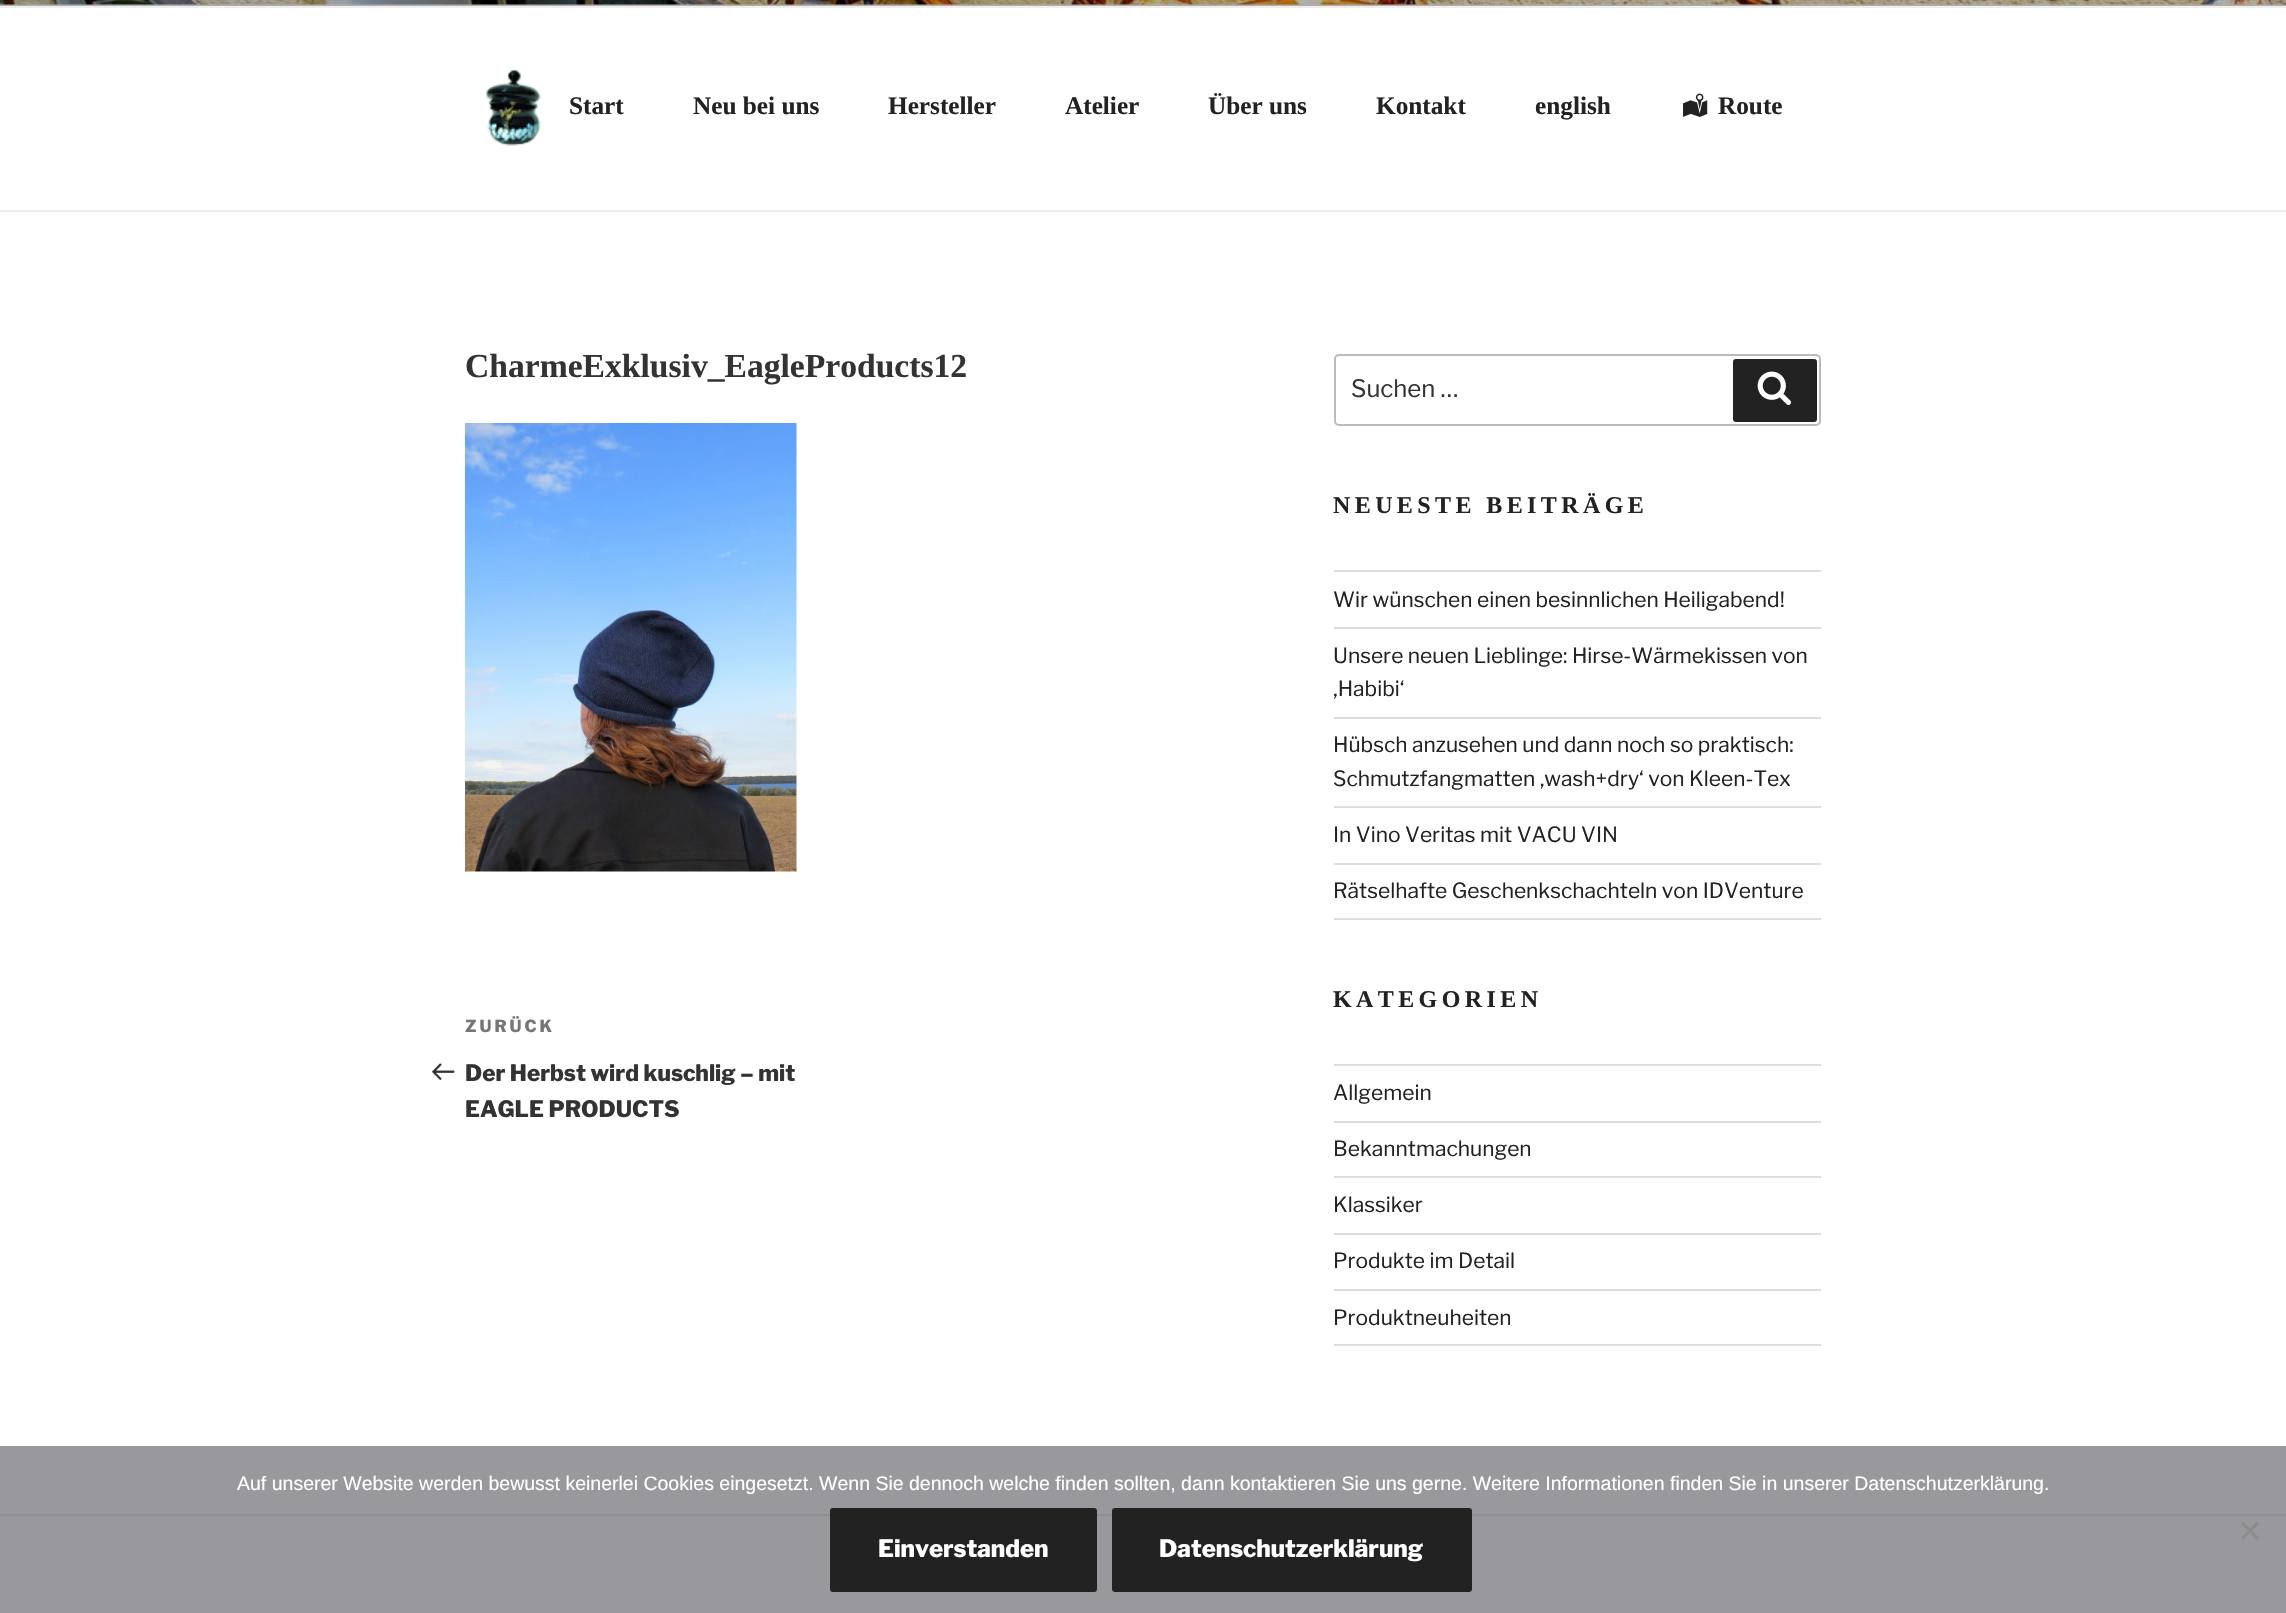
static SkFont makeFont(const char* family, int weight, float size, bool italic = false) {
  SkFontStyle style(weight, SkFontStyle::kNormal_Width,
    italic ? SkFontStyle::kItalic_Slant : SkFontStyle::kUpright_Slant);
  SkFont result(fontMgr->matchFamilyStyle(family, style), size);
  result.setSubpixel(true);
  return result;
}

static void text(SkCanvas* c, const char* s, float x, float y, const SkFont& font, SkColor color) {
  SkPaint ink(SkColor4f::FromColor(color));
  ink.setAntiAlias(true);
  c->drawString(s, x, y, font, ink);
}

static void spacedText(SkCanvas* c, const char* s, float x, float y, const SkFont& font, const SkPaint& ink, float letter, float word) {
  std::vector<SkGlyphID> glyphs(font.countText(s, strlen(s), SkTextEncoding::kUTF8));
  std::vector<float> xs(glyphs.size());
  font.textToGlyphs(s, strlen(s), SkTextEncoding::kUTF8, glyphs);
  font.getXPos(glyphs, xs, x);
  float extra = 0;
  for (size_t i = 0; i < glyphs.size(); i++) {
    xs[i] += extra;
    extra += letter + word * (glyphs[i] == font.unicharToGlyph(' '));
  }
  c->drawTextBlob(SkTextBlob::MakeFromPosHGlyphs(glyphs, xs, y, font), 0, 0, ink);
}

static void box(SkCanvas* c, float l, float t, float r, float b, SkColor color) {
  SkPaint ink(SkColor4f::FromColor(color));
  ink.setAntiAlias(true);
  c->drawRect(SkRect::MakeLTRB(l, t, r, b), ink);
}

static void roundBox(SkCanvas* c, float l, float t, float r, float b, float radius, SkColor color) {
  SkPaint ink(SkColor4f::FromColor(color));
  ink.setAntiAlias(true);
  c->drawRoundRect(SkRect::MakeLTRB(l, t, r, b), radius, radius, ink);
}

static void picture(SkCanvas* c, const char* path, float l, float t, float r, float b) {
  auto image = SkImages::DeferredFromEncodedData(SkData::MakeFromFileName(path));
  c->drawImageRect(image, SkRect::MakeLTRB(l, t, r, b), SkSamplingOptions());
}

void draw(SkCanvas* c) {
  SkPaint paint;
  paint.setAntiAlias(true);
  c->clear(0xffffffff);
  box(c, 0, 1446, 2286, 1613, 0xff99999d);
  box(c, 0, 4, 2286, 6, 0xfffafafa);
  picture(c, "img_01.png", 0, 0, 2286, 5);
  {
    const SkColor colors[] = {0x00000000, 0x4d000000, 0x4d000000};
    const float stops[] = {0, 0.75f, 1};
    const SkPoint ends[] = {{1143, -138}, {1143, 6}};
    paint.setShader(SkGradientShader::MakeLinear(ends, colors, stops, 3, SkTileMode::kClamp));
    paint.setAlpha(255);
  }
  c->drawRect(SkRect::MakeLTRB(0, 0, 2286, 6), paint);
  box(c, 0, 6, 2286, 8, 0xffeeeeee);
  box(c, 0, 210, 2286, 212, 0xffeeeeee);
  picture(c, "img_02.png", 485, 69, 541, 146);
  SkFont face1 = makeFont("Liberation Serif", 700, 25.25f);
  text(c, "Start", 569, 114, face1, 0xff222222);
  text(c, "Neu bei uns", 693, 114, face1, 0xff222222);
  text(c, "Hersteller", 888, 114, face1, 0xff222222);
  text(c, "Atelier", 1065, 114, face1, 0xff222222);
  text(c, "Über uns", 1208, 114, face1, 0xff222222);
  text(c, "Kontakt", 1376, 114, face1, 0xff222222);
  text(c, "english", 1535, 114, face1, 0xff222222);
  picture(c, "img_03.png", 1683, 93, 1708, 117);
  text(c, "Route", 1718, 114, face1, 0xff222222);
  SkFont face2 = makeFont("Liberation Serif", 700, 33.6f);
  text(c, "CharmeExklusiv_EagleProducts12", 465, 377, face2, 0xff333333);
  picture(c, "img_04.png", 465, 423, 797, 872);
  SkFont face3 = makeFont("Libre Franklin", 800, 16.5f);
  paint.setShader(nullptr);
  paint.setColor(0xff767676);
  spacedText(c, "ZURÜCK", 465, 1032, face3, paint, 3, 0);
  picture(c, "img_05.png", 432, 1063, 455, 1081);
  SkFont face4 = makeFont("Libre Franklin", 800, 22.5f);
  text(c, "Der Herbst wird kuschlig – mit", 465, 1081, face4, 0xff333333);
  text(c, "EAGLE PRODUCTS", 465, 1117, face4, 0xff333333);
  paint.setStyle(SkPaint::kStroke_Style);
  paint.setStrokeWidth(2);
  paint.setColor(0xffbbbbbb);
  c->drawRoundRect(SkRect::MakeLTRB(1335, 355, 1820, 425), 4, 4, paint);
  SkFont face5 = makeFont("Libre Franklin", 400, 24);
  text(c, "Suchen …", 1351, 397, face5, 0xff333333);
  roundBox(c, 1733, 359, 1817, 422, 3, 0xff222222);
  picture(c, "img_06.png", 1757, 371, 1791, 405);
  SkFont face6 = makeFont("Liberation Serif", 700, 24);
  paint.setStyle(SkPaint::kFill_Style);
  paint.setColor(0xff222222);
  spacedText(c, "NEUESTE BEITRÄGE", 1333, 513, face6, paint, 4.4f, 0);
  box(c, 1334, 570, 1821, 572, 0xffdddddd);
  box(c, 1334, 627, 1821, 629, 0xffdddddd);
  SkFont face7 = makeFont("Libre Franklin", 400, 21);
  text(c, "Wir wünschen einen besinnlichen Heiligabend!", 1333, 607, face7, 0xff222222);
  box(c, 1334, 717, 1821, 719, 0xffdddddd);
  text(c, "Unsere neuen Lieblinge: Hirse-Wärmekissen von", 1333, 663, face7, 0xff222222);
  text(c, "‚Habibi‘", 1333, 696, face7, 0xff222222);
  box(c, 1334, 806, 1821, 808, 0xffdddddd);
  text(c, "Hübsch anzusehen und dann noch so praktisch:", 1333, 752, face7, 0xff222222);
  text(c, "Schmutzfangmatten ‚wash+dry‘ von Kleen-Tex", 1333, 786, face7, 0xff222222);
  box(c, 1334, 863, 1821, 865, 0xffdddddd);
  text(c, "In Vino Veritas mit VACU VIN", 1333, 842, face7, 0xff222222);
  box(c, 1334, 918, 1821, 920, 0xffdddddd);
  text(c, "Rätselhafte Geschenkschachteln von IDVenture", 1333, 898, face7, 0xff222222);
  spacedText(c, "KATEGORIEN", 1333, 1007, face6, paint, 4.4f, 0);
  box(c, 1334, 1064, 1821, 1066, 0xffdddddd);
  box(c, 1334, 1121, 1821, 1123, 0xffdddddd);
  text(c, "Allgemein", 1333, 1100, face7, 0xff222222);
  box(c, 1334, 1176, 1821, 1178, 0xffdddddd);
  text(c, "Bekanntmachungen", 1333, 1156, face7, 0xff222222);
  box(c, 1334, 1233, 1821, 1235, 0xffdddddd);
  text(c, "Klassiker", 1333, 1212, face7, 0xff222222);
  box(c, 1334, 1289, 1821, 1291, 0xffdddddd);
  text(c, "Produkte im Detail", 1333, 1268, face7, 0xff222222);
  box(c, 1334, 1344, 1821, 1346, 0xffdddddd);
  text(c, "Produktneuheiten", 1333, 1325, face7, 0xff222222);
  box(c, 0, 1514, 2286, 1516, 0xff909094);
  SkFont face8 = makeFont("Liberation Sans", 400, 19.5f);
  text(c, "Auf unserer Website werden bewusst keinerlei Cookies eingesetzt. Wenn Sie dennoch welche finden sollten, dann kontaktieren Sie uns gerne. Weitere Informationen finden Sie in unserer Datenschutzerklärung.", 237, 1490, face8, 0xffffffff);
  paint.setColor(0xff8c8c8e);
  c->drawPath(SkPathBuilder().moveTo(2257, 1521.5f).lineTo(2259, 1524).lineTo(2243, 1540).lineTo(2241, 1537.5f).close().detach(), paint);
  c->drawPath(SkPathBuilder().moveTo(2241, 1524).lineTo(2243, 1521.5f).lineTo(2259, 1537.5f).lineTo(2257, 1540).close().detach(), paint);
  roundBox(c, 830, 1508, 1097, 1592, 3, 0xff222222);
  SkFont face9 = makeFont("Libre Franklin", 800, 24);
  text(c, "Einverstanden", 878, 1557, face9, 0xffffffff);
  roundBox(c, 1112, 1508, 1472, 1592, 3, 0xff222222);
  text(c, "Datenschutzerklärung", 1159, 1557, face9, 0xffffffff);
}
